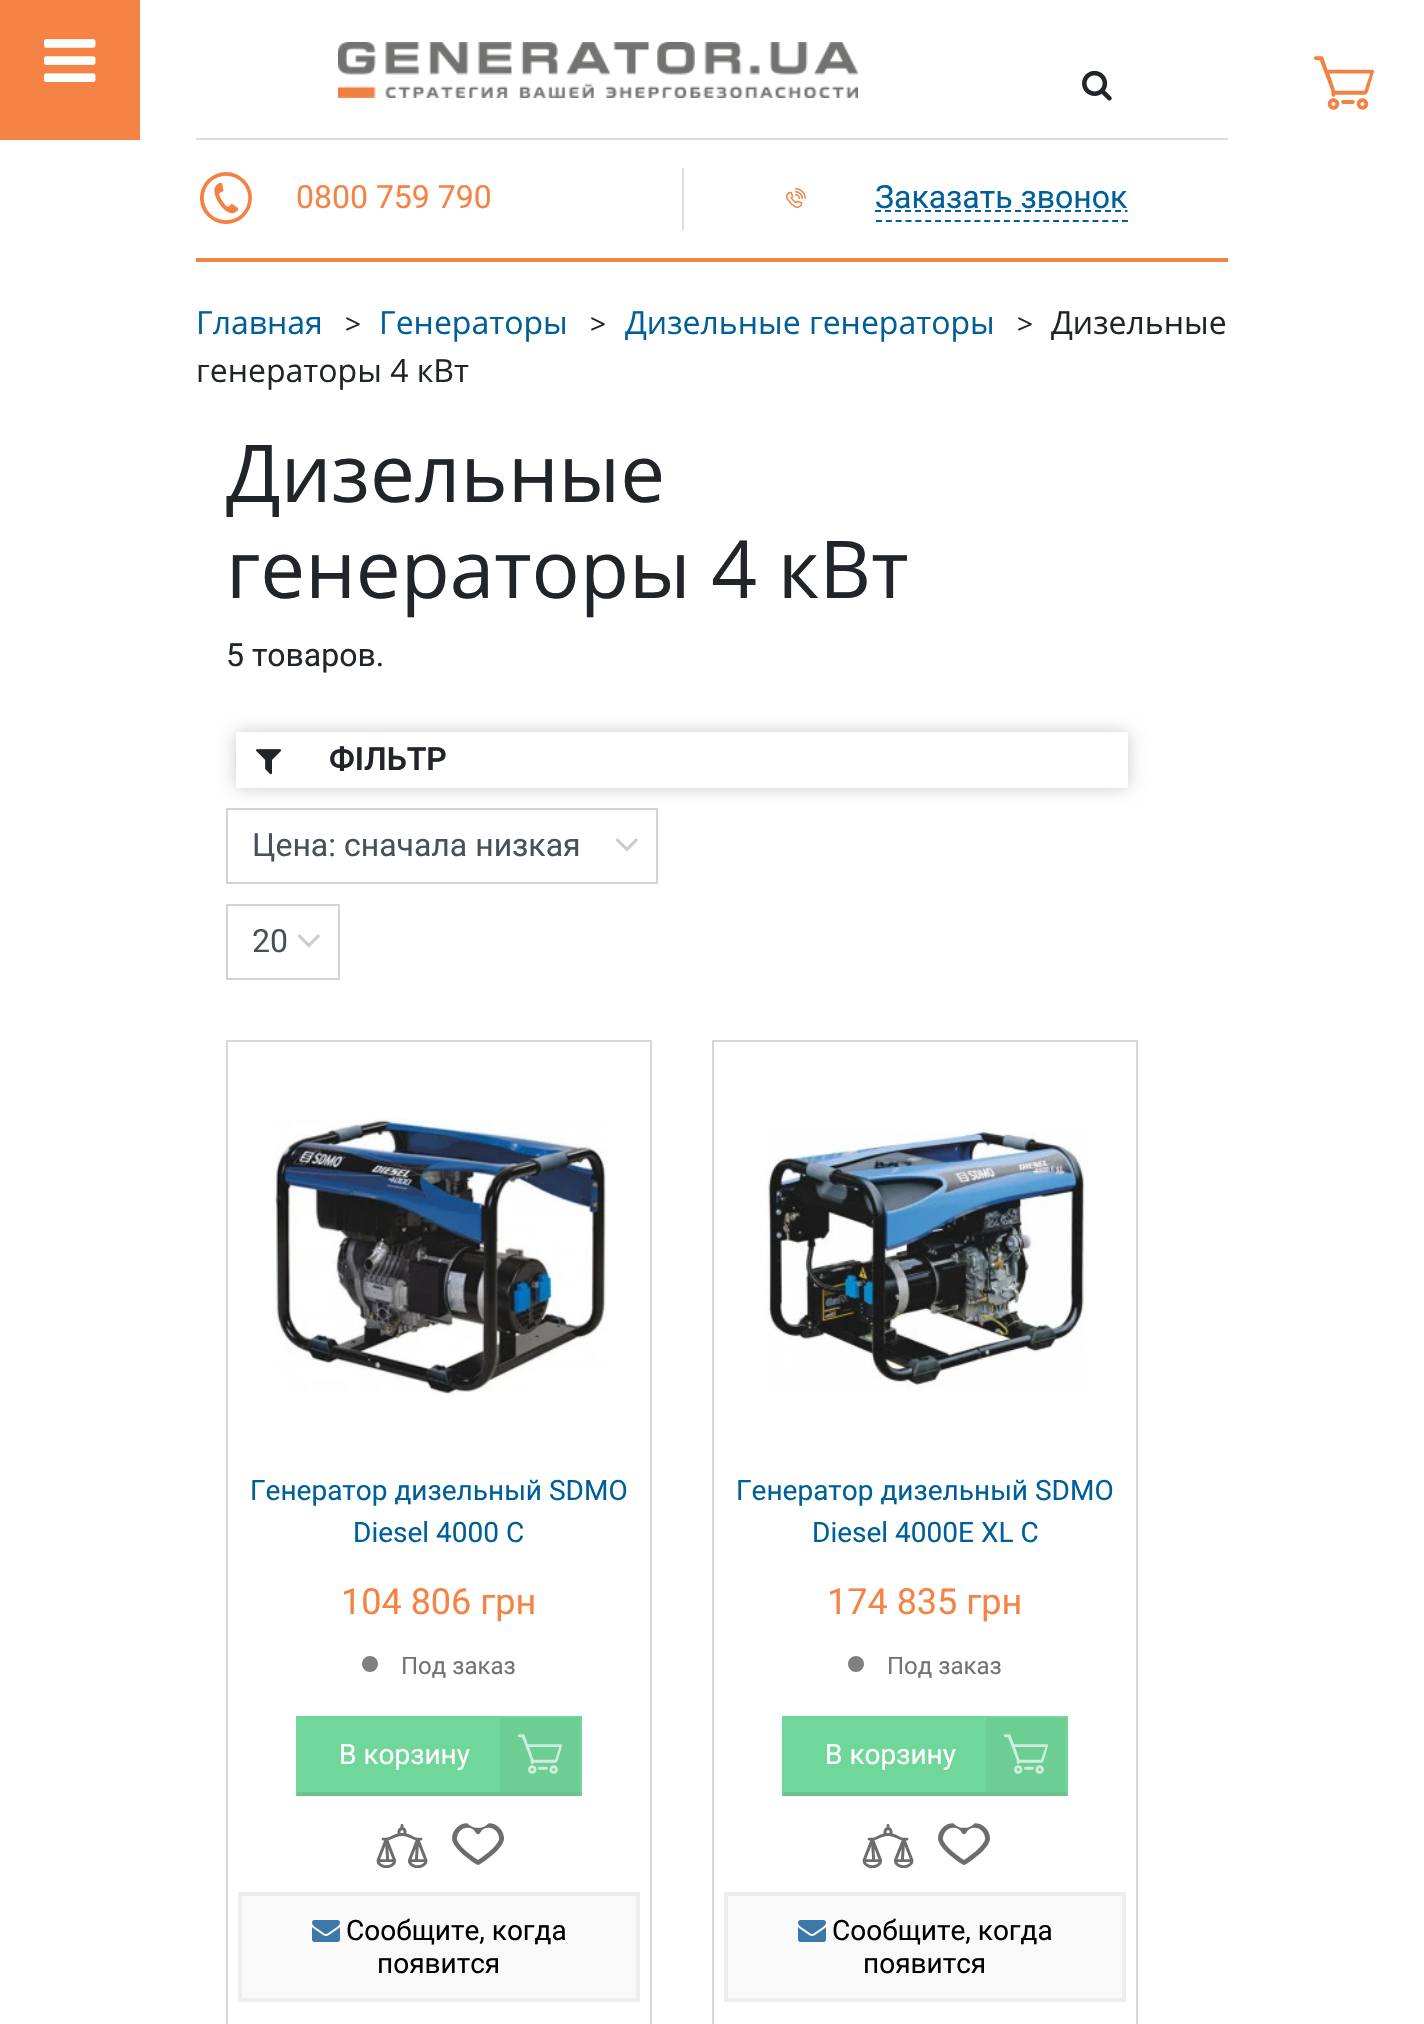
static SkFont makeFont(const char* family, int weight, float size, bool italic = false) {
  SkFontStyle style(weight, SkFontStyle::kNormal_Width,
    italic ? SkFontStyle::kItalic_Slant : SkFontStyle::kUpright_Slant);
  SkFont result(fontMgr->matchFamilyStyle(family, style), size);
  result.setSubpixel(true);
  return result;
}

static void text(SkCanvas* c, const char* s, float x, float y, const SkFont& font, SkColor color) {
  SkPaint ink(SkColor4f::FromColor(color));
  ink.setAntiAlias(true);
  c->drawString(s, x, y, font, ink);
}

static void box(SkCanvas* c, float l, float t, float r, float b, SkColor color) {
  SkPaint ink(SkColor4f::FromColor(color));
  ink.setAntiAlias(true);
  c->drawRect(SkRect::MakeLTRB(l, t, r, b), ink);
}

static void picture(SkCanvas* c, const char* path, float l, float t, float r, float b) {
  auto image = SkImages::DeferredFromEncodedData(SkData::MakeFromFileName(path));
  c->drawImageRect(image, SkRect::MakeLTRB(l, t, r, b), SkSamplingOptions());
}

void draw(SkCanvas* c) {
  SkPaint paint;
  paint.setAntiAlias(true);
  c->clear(0xffffffff);
  box(c, 0, 0, 140, 140, 0xfff58345);
  picture(c, "img_01.png", 44, 39, 96, 82);
  picture(c, "img_02.png", 338, 42, 858, 98);
  picture(c, "img_03.png", 1082, 70, 1112, 101);
  picture(c, "img_04.png", 1314, 56, 1374, 110);
  box(c, 196, 138, 1228, 140, 0xffdddddd);
  box(c, 196, 258, 1228, 262, 0xfff58345);
  box(c, 682, 168, 684, 230, 0xffdddddd);
  picture(c, "img_05.png", 200, 172, 252, 224);
  SkFont face1 = makeFont("Roboto", 400, 32);
  text(c, "0800 759 790", 296, 208, face1, 0xfff58345);
  picture(c, "img_06.png", 786, 188, 806, 208);
  text(c, "Заказать звонок", 875, 208, face1, 0xff005f99);
  paint.setStyle(SkPaint::kStroke_Style);
  paint.setStrokeWidth(2);
  paint.setColor(0xff005f99);
  paint.setPathEffect(SkDashPathEffect::Make({{6, 4}}, 0));
  c->drawPath(SkPathBuilder().moveTo(875, 211).lineTo(1127.5f, 211).detach(), paint);
  paint.setPathEffect(nullptr);
  paint.setPathEffect(SkDashPathEffect::Make({{6, 3.84f}}, 0));
  c->drawPath(SkPathBuilder().moveTo(876, 221).lineTo(1128, 221).detach(), paint);
  paint.setPathEffect(nullptr);
  SkFont face2 = makeFont("Open Sans", 400, 32);
  text(c, "Главная", 196, 334, face2, 0xff005f99);
  SkFont face3 = makeFont("Open Sans", 400, 28);
  text(c, ">", 345, 334, face3, 0xff212529);
  text(c, "Генераторы", 379, 334, face2, 0xff005f99);
  text(c, ">", 590, 334, face3, 0xff212529);
  text(c, "Дизельные генераторы", 625, 334, face2, 0xff005f99);
  text(c, ">", 1017, 334, face3, 0xff212529);
  text(c, "Дизельные", 1051, 334, face2, 0xff212529);
  text(c, "генераторы 4 кВт", 196, 382, face2, 0xff212529);
  SkFont face4 = makeFont("Open Sans", 400, 80);
  text(c, "Дизельные", 226, 502, face4, 0xff212529);
  text(c, "генераторы 4 кВт", 226, 598, face4, 0xff212529);
  text(c, "5 товаров.", 226, 666, face1, 0xff212529);
  c->save();
  c->clipPath(SkPathBuilder(SkPathFillType::kEvenOdd).moveTo(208, 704).lineTo(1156, 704).lineTo(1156, 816).lineTo(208, 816).close().moveTo(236, 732).lineTo(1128, 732).lineTo(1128, 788).lineTo(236, 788).close().detach(), true);
  paint.setStyle(SkPaint::kFill_Style);
  paint.setColor(0x33000000);
  paint.setMaskFilter(SkMaskFilter::MakeBlur(kNormal_SkBlurStyle, 9));
  c->drawRect(SkRect::MakeLTRB(236, 732, 1128, 788), paint);
  paint.setMaskFilter(nullptr);
  c->restore();
  picture(c, "img_07.png", 256, 749, 282, 775);
  SkFont face5 = makeFont("Roboto", 600, 32);
  text(c, "ФІЛЬТР", 329, 770, face5, 0xff212529);
  picture(c, "img_08.png", 615, 838, 638, 852);
  paint.setStyle(SkPaint::kStroke_Style);
  paint.setColor(0xffced4da);
  c->drawRect(SkRect::MakeLTRB(227, 809, 657, 883), paint);
  text(c, "Цена: сначала низкая", 252, 856, face1, 0xff495057);
  c->drawRect(SkRect::MakeLTRB(227, 905, 339, 979), paint);
  text(c, "20", 252, 952, face1, 0xff495057);
  picture(c, "img_08.png", 297, 934, 320, 948);
  paint.setColor(0xffd7d7d7);
  c->drawRect(SkRect::MakeLTRB(227, 1041, 651, 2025), paint);
  picture(c, "img_09.png", 274, 1118, 607, 1395);
  SkFont face6 = makeFont("Roboto", 400, 28);
  text(c, "Генератор дизельный SDMO", 250, 1500, face6, 0xff005f99);
  text(c, "Diesel 4000 C", 353, 1542, face6, 0xff005f99);
  SkFont face7 = makeFont("Roboto", 400, 36);
  text(c, "104 806 грн", 341, 1614, face7, 0xfff58345);
  paint.setStyle(SkPaint::kFill_Style);
  paint.setColor(0xff808080);
  c->drawCircle(370, 1664, 8, paint);
  SkFont face8 = makeFont("Roboto", 400, 24);
  text(c, "Под заказ", 401, 1674, face8, 0xff727272);
  box(c, 296, 1716, 582, 1796, 0xff70d79a);
  paint.setColor(0xff6cc18f);
  c->drawPath(SkPathBuilder().moveTo(582, 1796).lineTo(296, 1796).lineTo(298, 1792).lineTo(580, 1792).close().detach(), paint);
  text(c, "В корзину", 339, 1764, face6, 0xffffffff);
  box(c, 500, 1718, 580, 1792, 0xff6dce93);
  picture(c, "img_10.png", 518, 1734, 562, 1774);
  picture(c, "img_11.png", 376, 1824, 428, 1868);
  picture(c, "img_12.png", 452, 1823, 504, 1865);
  paint.setColor(0xfff9f9f9);
  c->drawRect(SkRect::MakeLTRB(240, 1894, 638, 2000), paint);
  paint.setStyle(SkPaint::kStroke_Style);
  paint.setStrokeWidth(4);
  paint.setColor(0xffeeeeee);
  c->drawRect(SkRect::MakeLTRB(240, 1894, 638, 2000), paint);
  picture(c, "img_13.png", 312, 1920, 340, 1942);
  text(c, "Сообщите, когда", 346, 1940, face6, 0xff000000);
  text(c, "появится", 377, 1973, face6, 0xff000000);
  paint.setStrokeWidth(2);
  paint.setColor(0xffd7d7d7);
  c->drawRect(SkRect::MakeLTRB(713, 1041, 1137, 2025), paint);
  picture(c, "img_14.png", 765, 1130, 1087, 1390);
  text(c, "Генератор дизельный SDMO", 736, 1500, face6, 0xff005f99);
  text(c, "Diesel 4000E XL C", 812, 1542, face6, 0xff005f99);
  text(c, "174 835 грн", 827, 1614, face7, 0xfff58345);
  paint.setStyle(SkPaint::kFill_Style);
  paint.setColor(0xff808080);
  c->drawCircle(856, 1664, 8, paint);
  text(c, "Под заказ", 887, 1674, face8, 0xff727272);
  box(c, 782, 1716, 1068, 1796, 0xff70d79a);
  paint.setColor(0xff6cc18f);
  c->drawPath(SkPathBuilder().moveTo(1068, 1796).lineTo(782, 1796).lineTo(784, 1792).lineTo(1066, 1792).close().detach(), paint);
  text(c, "В корзину", 825, 1764, face6, 0xffffffff);
  box(c, 986, 1718, 1066, 1792, 0xff6dce93);
  picture(c, "img_15.png", 1004, 1734, 1048, 1774);
  picture(c, "img_11.png", 862, 1824, 914, 1868);
  picture(c, "img_12.png", 938, 1823, 990, 1865);
  paint.setColor(0xfff9f9f9);
  c->drawRect(SkRect::MakeLTRB(726, 1894, 1124, 2000), paint);
  paint.setStyle(SkPaint::kStroke_Style);
  paint.setStrokeWidth(4);
  paint.setColor(0xffeeeeee);
  c->drawRect(SkRect::MakeLTRB(726, 1894, 1124, 2000), paint);
  picture(c, "img_13.png", 798, 1920, 826, 1942);
  text(c, "Сообщите, когда", 832, 1940, face6, 0xff000000);
  text(c, "появится", 863, 1973, face6, 0xff000000);
}
